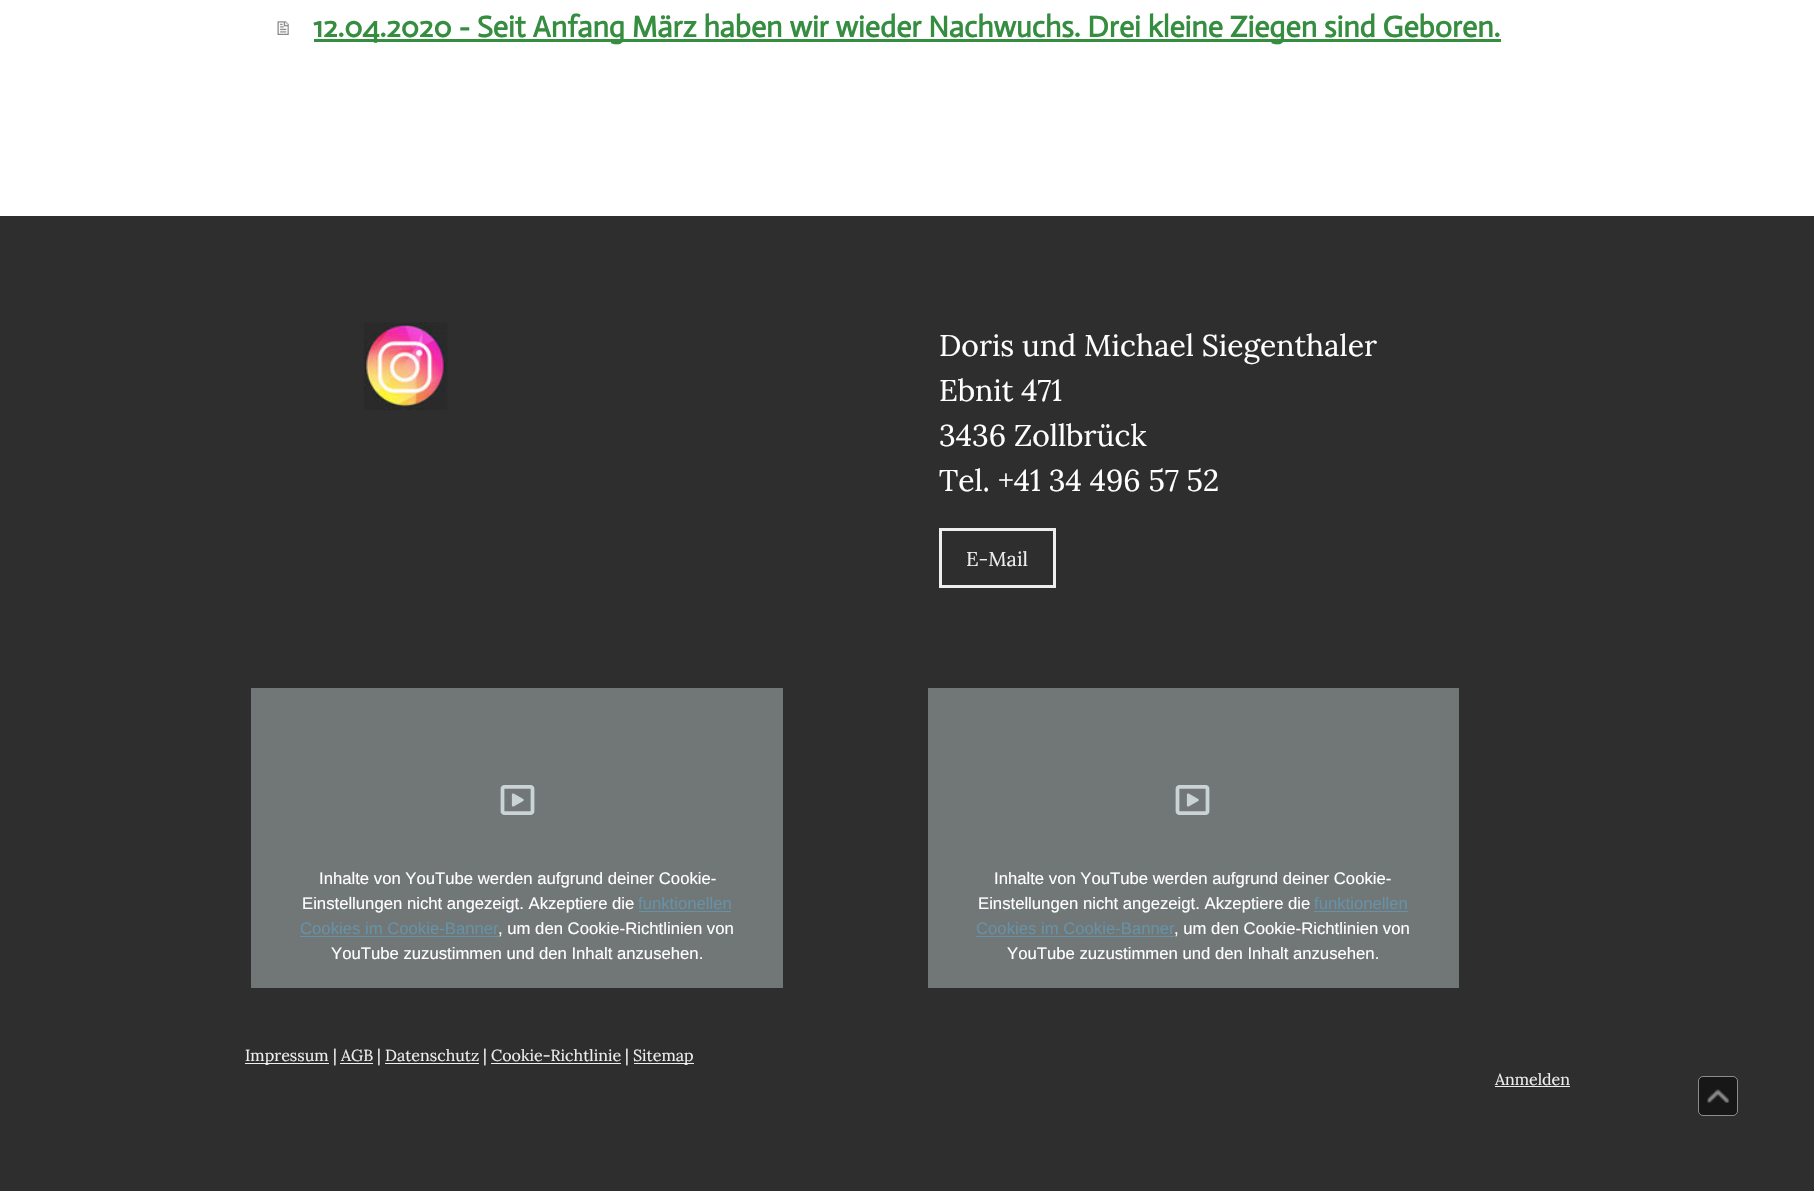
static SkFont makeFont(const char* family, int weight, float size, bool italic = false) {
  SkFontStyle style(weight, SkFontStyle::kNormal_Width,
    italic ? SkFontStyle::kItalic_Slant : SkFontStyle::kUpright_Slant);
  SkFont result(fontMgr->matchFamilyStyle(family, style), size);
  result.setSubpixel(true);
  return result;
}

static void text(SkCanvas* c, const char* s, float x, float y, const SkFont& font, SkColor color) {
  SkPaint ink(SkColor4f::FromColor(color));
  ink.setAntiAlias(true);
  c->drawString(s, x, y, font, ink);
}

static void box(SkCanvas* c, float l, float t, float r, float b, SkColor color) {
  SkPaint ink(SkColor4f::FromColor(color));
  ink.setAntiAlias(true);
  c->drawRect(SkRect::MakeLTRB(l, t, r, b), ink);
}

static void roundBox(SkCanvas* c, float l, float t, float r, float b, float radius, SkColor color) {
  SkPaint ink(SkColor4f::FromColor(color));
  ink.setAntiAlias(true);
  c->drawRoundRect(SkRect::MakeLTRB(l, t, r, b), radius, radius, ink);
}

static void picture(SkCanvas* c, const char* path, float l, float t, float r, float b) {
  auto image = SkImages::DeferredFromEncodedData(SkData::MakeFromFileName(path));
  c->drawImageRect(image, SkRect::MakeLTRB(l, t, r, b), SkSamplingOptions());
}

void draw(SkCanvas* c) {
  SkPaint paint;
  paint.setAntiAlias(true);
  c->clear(0xffffffff);
  picture(c, "img_01.png", 277, 21, 289, 35);
  box(c, 314, 39, 1501, 42, 0xff358d3f);
  SkFont face1 = makeFont("Actor", 700, 30);
  text(c, "12.04.2020 - Seit Anfang März haben wir wieder Nachwuchs. Drei kleine Ziegen sind Geboren.", 313, 37, face1, 0xff358d3f);
  box(c, 0, 216, 1814, 1191, 0xff2e2e2e);
  picture(c, "img_02.png", 363, 322, 448, 410);
  SkFont face2 = makeFont("Lora", 400, 30);
  text(c, "Doris und Michael Siegenthaler", 939, 356, face2, 0xffffffff);
  text(c, "Ebnit 471", 939, 401, face2, 0xffffffff);
  text(c, "3436 Zollbrück", 939, 446, face2, 0xffffffff);
  text(c, "Tel. +41 34 496 57 52", 939, 491, face2, 0xffffffff);
  paint.setStyle(SkPaint::kStroke_Style);
  paint.setStrokeWidth(3);
  paint.setColor(0xffeeeeee);
  c->drawRect(SkRect::MakeLTRB(940.5f, 529.5f, 1054.5f, 586.5f), paint);
  SkFont face3 = makeFont("Lora", 400, 20);
  text(c, "E-Mail", 966, 566, face3, 0xffeeeeee);
  box(c, 251, 688, 783, 988, 0xff717677);
  picture(c, "img_03.png", 500, 785, 535, 815);
  SkFont face4 = makeFont("Liberation Sans", 400, 16.7f);
  text(c, "Inhalte von YouTube werden aufgrund deiner Cookie-", 319, 884, face4, 0xffffffff);
  text(c, "Einstellungen nicht angezeigt. Akzeptiere die", 302, 909, face4, 0xffffffff);
  text(c, "funktionellen", 638, 909, face4, 0xff6592a7);
  box(c, 639, 911, 731, 912, 0xff6592a7);
  text(c, "Cookies im Cookie-Banner", 300, 934, face4, 0xff6592a7);
  text(c, ", um den Cookie-Richtlinien von", 498, 934, face4, 0xffffffff);
  box(c, 300, 936, 499, 937, 0xff6592a7);
  text(c, "YouTube zuzustimmen und den Inhalt anzusehen.", 331, 959, face4, 0xffffffff);
  box(c, 928, 688, 1459, 988, 0xff717677);
  picture(c, "img_03.png", 1175, 785, 1210, 815);
  text(c, "Inhalte von YouTube werden aufgrund deiner Cookie-", 994, 884, face4, 0xffffffff);
  text(c, "Einstellungen nicht angezeigt. Akzeptiere die", 978, 909, face4, 0xffffffff);
  text(c, "funktionellen", 1314, 909, face4, 0xff6592a7);
  box(c, 1314, 911, 1408, 912, 0xff6592a7);
  text(c, "Cookies im Cookie-Banner", 976, 934, face4, 0xff6592a7);
  text(c, ", um den Cookie-Richtlinien von", 1174, 934, face4, 0xffffffff);
  box(c, 976, 936, 1174, 937, 0xff6592a7);
  text(c, "YouTube zuzustimmen und den Inhalt anzusehen.", 1007, 959, face4, 0xffffffff);
  box(c, 245, 1063, 329, 1064, 0xffeeeeee);
  SkFont face5 = makeFont("Lora", 400, 16);
  text(c, "Impressum", 245, 1061, face5, 0xffeeeeee);
  text(c, "|", 333, 1061, face5, 0xffffffff);
  text(c, "AGB", 341, 1061, face5, 0xffeeeeee);
  box(c, 340, 1063, 373, 1064, 0xffeeeeee);
  text(c, "|", 377, 1061, face5, 0xffffffff);
  text(c, "Datenschutz", 385, 1061, face5, 0xffeeeeee);
  box(c, 385, 1063, 479, 1064, 0xffeeeeee);
  text(c, "|", 483, 1061, face5, 0xffffffff);
  text(c, "Cookie-Richtlinie", 491, 1061, face5, 0xffeeeeee);
  box(c, 491, 1063, 621, 1064, 0xffeeeeee);
  text(c, "|", 625, 1061, face5, 0xffffffff);
  box(c, 634, 1063, 694, 1064, 0xffeeeeee);
  text(c, "Sitemap", 633, 1061, face5, 0xffeeeeee);
  text(c, "Anmelden", 1495, 1085, face5, 0xffeeeeee);
  box(c, 1495, 1086, 1570, 1087, 0xffeeeeee);
  roundBox(c, 1698, 1076, 1738, 1116, 5, 0xff171717);
  paint.setStrokeWidth(1);
  paint.setColor(0x80ffffff);
  c->drawRoundRect(SkRect::MakeLTRB(1698.5f, 1076.5f, 1737.5f, 1115.5f), 4.5f, 4.5f, paint);
  picture(c, "img_04.png", 1707, 1089, 1730, 1103);
}
